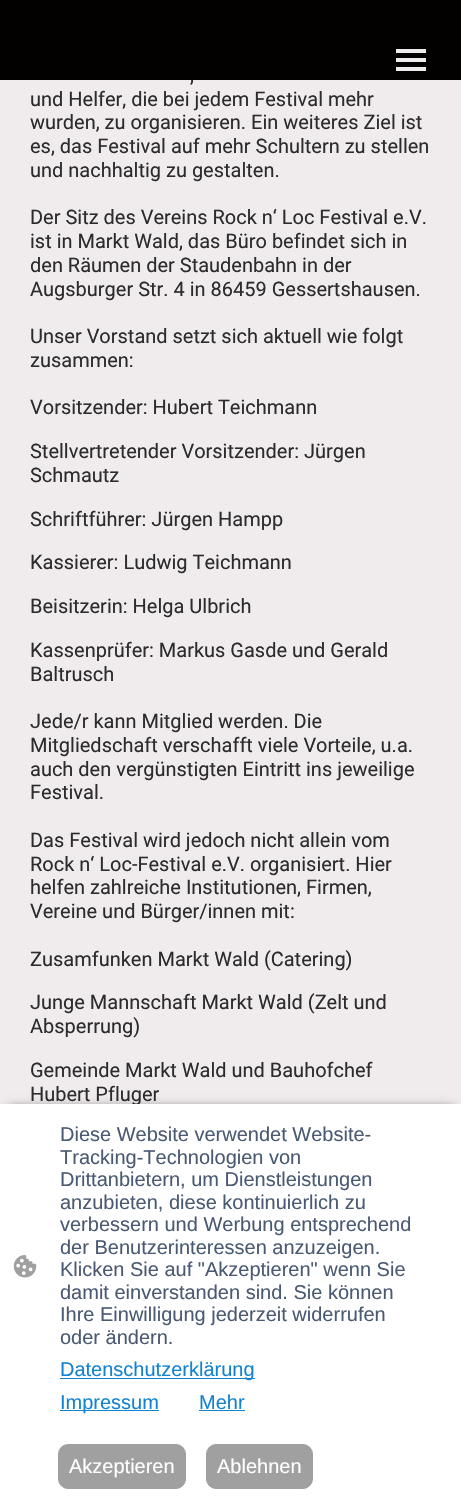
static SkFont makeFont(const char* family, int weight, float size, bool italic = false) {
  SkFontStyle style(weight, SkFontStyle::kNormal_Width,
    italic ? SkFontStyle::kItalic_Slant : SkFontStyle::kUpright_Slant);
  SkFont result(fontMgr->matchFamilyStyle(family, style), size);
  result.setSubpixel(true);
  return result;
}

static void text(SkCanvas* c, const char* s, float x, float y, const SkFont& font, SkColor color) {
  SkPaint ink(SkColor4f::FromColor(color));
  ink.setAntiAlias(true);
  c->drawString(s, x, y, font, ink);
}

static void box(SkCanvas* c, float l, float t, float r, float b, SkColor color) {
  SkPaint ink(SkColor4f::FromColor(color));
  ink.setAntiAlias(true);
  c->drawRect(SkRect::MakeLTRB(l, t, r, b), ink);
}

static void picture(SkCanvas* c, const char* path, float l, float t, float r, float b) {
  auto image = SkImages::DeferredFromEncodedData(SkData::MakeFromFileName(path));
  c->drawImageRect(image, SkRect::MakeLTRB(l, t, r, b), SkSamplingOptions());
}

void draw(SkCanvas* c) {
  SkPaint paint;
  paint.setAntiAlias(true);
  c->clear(0xfff0ebec);
  SkFont face1 = makeFont("Roboto", 400, 20);
  text(c, ",", 190, 82, face1, 0xff2c2c2c);
  box(c, 0, 0, 461, 80, 0xff020100);
  box(c, 396, 49, 426, 53, 0xfff0ebec);
  box(c, 396, 58, 426, 62, 0xfff0ebec);
  box(c, 396, 67, 426, 71, 0xfff0ebec);
  text(c, "und Helfer, die bei jedem Festival mehr", 30, 106, face1, 0xff2c2c2c);
  text(c, "wurden, zu organisieren. Ein weiteres Ziel ist", 30, 129, face1, 0xff2c2c2c);
  text(c, "es, das Festival auf mehr Schultern zu stellen", 30, 153, face1, 0xff2c2c2c);
  text(c, "und nachhaltig zu gestalten.", 30, 177, face1, 0xff2c2c2c);
  text(c, "Der Sitz des Vereins Rock n‘ Loc Festival e.V.", 30, 224, face1, 0xff2c2c2c);
  text(c, "ist in Markt Wald, das Büro befindet sich in", 30, 248, face1, 0xff2c2c2c);
  text(c, "den Räumen der Staudenbahn in der", 30, 272, face1, 0xff2c2c2c);
  text(c, "Augsburger Str. 4 in 86459 Gessertshausen.", 30, 296, face1, 0xff2c2c2c);
  text(c, "Unser Vorstand setzt sich aktuell wie folgt", 30, 343, face1, 0xff2c2c2c);
  text(c, "zusammen:", 30, 367, face1, 0xff2c2c2c);
  text(c, "Vorsitzender: Hubert Teichmann", 30, 414, face1, 0xff2c2c2c);
  text(c, "Stellvertretender Vorsitzender: Jürgen", 30, 458, face1, 0xff2c2c2c);
  text(c, "Schmautz", 30, 482, face1, 0xff2c2c2c);
  text(c, "Schriftführer: Jürgen Hampp", 30, 526, face1, 0xff2c2c2c);
  text(c, "Kassierer: Ludwig Teichmann", 30, 569, face1, 0xff2c2c2c);
  text(c, "Beisitzerin: Helga Ulbrich", 30, 613, face1, 0xff2c2c2c);
  text(c, "Kassenprüfer: Markus Gasde und Gerald", 30, 657, face1, 0xff2c2c2c);
  text(c, "Baltrusch", 30, 681, face1, 0xff2c2c2c);
  text(c, "Jede/r kann Mitglied werden. Die", 30, 728, face1, 0xff2c2c2c);
  text(c, "Mitgliedschaft verschafft viele Vorteile, u.a.", 30, 752, face1, 0xff2c2c2c);
  text(c, "auch den vergünstigten Eintritt ins jeweilige", 30, 776, face1, 0xff2c2c2c);
  text(c, "Festival.", 30, 799, face1, 0xff2c2c2c);
  text(c, "Das Festival wird jedoch nicht allein vom", 30, 847, face1, 0xff2c2c2c);
  text(c, "Rock n‘ Loc-Festival e.V. organisiert. Hier", 30, 871, face1, 0xff2c2c2c);
  text(c, "helfen zahlreiche Institutionen, Firmen,", 30, 894, face1, 0xff2c2c2c);
  text(c, "Vereine und Bürger/innen mit:", 30, 918, face1, 0xff2c2c2c);
  text(c, "Zusamfunken Markt Wald (Catering)", 30, 966, face1, 0xff2c2c2c);
  text(c, "Junge Mannschaft Markt Wald (Zelt und", 30, 1009, face1, 0xff2c2c2c);
  text(c, "Absperrung)", 30, 1033, face1, 0xff2c2c2c);
  text(c, "Gemeinde Markt Wald und Bauhofchef", 30, 1077, face1, 0xff2c2c2c);
  text(c, "Hubert Pfluger", 30, 1101, face1, 0xff2c2c2c);
  paint.setColor(0xa1000000);
  paint.setMaskFilter(SkMaskFilter::MakeBlur(kNormal_SkBlurStyle, 5));
  c->drawRect(SkRect::MakeLTRB(8, 1108, 454, 1488), paint);
  paint.setMaskFilter(nullptr);
  box(c, 0, 1104, 461, 1498, 0xffffffff);
  picture(c, "img_01.png", 13, 1255, 37, 1278);
  SkFont face2 = makeFont("Liberation Sans", 400, 20);
  text(c, "Diese Website verwendet Website-", 60, 1141, face2, 0xff4a5a73);
  text(c, "Tracking-Technologien von", 60, 1164, face2, 0xff4a5a73);
  text(c, "Drittanbietern, um Dienstleistungen", 60, 1186, face2, 0xff4a5a73);
  text(c, "anzubieten, diese kontinuierlich zu", 60, 1209, face2, 0xff4a5a73);
  text(c, "verbessern und Werbung entsprechend", 60, 1231, face2, 0xff4a5a73);
  text(c, "der Benutzerinteressen anzuzeigen.", 60, 1254, face2, 0xff4a5a73);
  text(c, "Klicken Sie auf \"Akzeptieren\" wenn Sie", 60, 1276, face2, 0xff4a5a73);
  text(c, "damit einverstanden sind. Sie können", 60, 1299, face2, 0xff4a5a73);
  text(c, "Ihre Einwilligung jederzeit widerrufen", 60, 1321, face2, 0xff4a5a73);
  text(c, "oder ändern.", 60, 1344, face2, 0xff4a5a73);
  box(c, 60, 1378, 255, 1379, 0xff1183d1);
  text(c, "Datenschutzerklärung", 60, 1376, face2, 0xff1183d1);
  box(c, 60, 1410, 159, 1411, 0xff1183d1);
  text(c, "Impressum", 60, 1409, face2, 0xff1183d1);
  text(c, "Mehr", 199, 1409, face2, 0xff1183d1);
  box(c, 199, 1410, 245, 1411, 0xff1183d1);
  paint.setColor(0xffa0a0a0);
  c->drawRoundRect(SkRect::MakeLTRB(58.5f, 1444.5f, 185.5f, 1488.5f), 9.5f, 9.5f, paint);
  paint.setStyle(SkPaint::kStroke_Style);
  paint.setStrokeWidth(1);
  c->drawRoundRect(SkRect::MakeLTRB(58.5f, 1444.5f, 185.5f, 1488.5f), 9.5f, 9.5f, paint);
  text(c, "Akzeptieren", 69, 1473, face2, 0xffffffff);
  paint.setStyle(SkPaint::kFill_Style);
  c->drawRoundRect(SkRect::MakeLTRB(206.5f, 1444.5f, 312.5f, 1488.5f), 9.5f, 9.5f, paint);
  paint.setStyle(SkPaint::kStroke_Style);
  c->drawRoundRect(SkRect::MakeLTRB(206.5f, 1444.5f, 312.5f, 1488.5f), 9.5f, 9.5f, paint);
  text(c, "Ablehnen", 217, 1473, face2, 0xffffffff);
}
